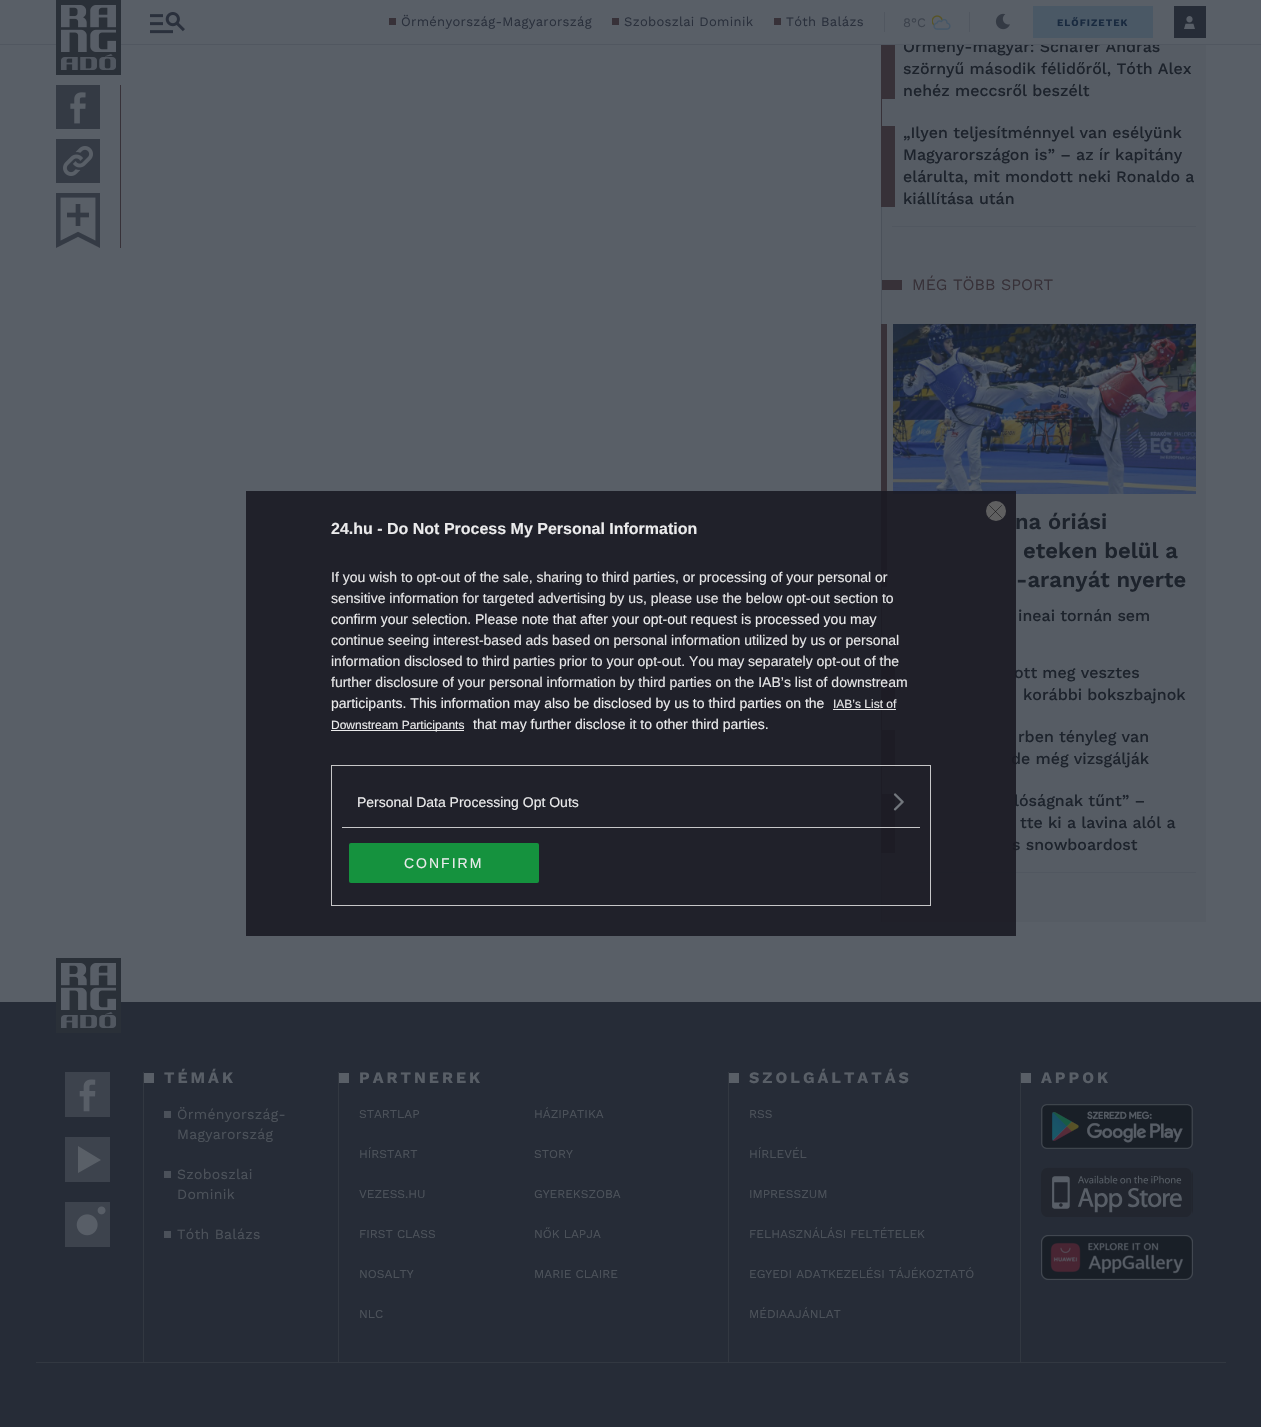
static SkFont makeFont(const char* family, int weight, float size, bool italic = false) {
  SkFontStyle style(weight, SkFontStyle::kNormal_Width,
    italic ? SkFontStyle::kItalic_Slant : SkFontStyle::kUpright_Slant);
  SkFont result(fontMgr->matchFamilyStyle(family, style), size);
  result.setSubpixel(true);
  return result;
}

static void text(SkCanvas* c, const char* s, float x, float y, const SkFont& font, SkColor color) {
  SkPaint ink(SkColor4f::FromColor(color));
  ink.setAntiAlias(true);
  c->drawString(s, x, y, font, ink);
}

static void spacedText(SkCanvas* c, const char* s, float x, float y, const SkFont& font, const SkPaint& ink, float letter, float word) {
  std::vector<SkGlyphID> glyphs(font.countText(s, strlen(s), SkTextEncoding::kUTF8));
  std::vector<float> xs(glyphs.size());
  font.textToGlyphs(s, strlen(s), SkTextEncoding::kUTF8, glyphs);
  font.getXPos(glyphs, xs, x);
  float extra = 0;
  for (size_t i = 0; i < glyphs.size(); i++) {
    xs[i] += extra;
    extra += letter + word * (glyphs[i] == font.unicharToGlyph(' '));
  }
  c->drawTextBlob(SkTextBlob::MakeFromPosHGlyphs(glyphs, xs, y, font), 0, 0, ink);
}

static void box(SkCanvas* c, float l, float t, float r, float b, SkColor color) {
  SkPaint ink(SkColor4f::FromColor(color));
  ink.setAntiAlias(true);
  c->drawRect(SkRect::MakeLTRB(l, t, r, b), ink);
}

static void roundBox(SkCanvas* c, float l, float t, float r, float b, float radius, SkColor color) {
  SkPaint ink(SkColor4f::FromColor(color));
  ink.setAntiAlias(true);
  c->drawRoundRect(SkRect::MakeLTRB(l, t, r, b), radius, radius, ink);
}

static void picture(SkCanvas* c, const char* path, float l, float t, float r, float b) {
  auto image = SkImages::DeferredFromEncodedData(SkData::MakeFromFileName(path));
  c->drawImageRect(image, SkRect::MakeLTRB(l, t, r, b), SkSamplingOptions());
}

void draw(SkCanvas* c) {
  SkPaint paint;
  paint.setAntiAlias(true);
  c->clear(0xff595f67);
  box(c, 882, 45, 1206, 922, 0xff565c64);
  SkFont face1 = makeFont("Work Sans", 500, 16);
  text(c, "Örmény-magyar: Schäfer András", 903, 52, face1, 0xff1d232c);
  box(c, 904, 38, 1157, 44, 0xff595f67);
  box(c, 0, 44, 1261, 45, 0xff515760);
  picture(c, "img_01.png", 56, 0, 121, 75);
  picture(c, "img_02.png", 150, 12, 185, 34);
  box(c, 389, 18, 396, 25, 0xff373138);
  SkFont face2 = makeFont("Work Sans", 400, 13);
  paint.setColor(0xff2a303c);
  spacedText(c, "Örményország-Magyarország", 401, 26, face2, paint, 0.3f, 0);
  box(c, 612, 18, 619, 25, 0xff373138);
  spacedText(c, "Szoboszlai Dominik", 624, 26, face2, paint, 0.3f, 0);
  box(c, 774, 18, 781, 25, 0xff373138);
  spacedText(c, "Tóth Balázs", 786, 26, face2, paint, 0.3f, 0);
  box(c, 969, 12, 970, 32, 0xff515760);
  box(c, 884, 12, 885, 32, 0xff515760);
  text(c, "8°C", 903, 27, face2, 0xff3d434d);
  picture(c, "img_03.png", 932, 15, 951, 30);
  picture(c, "img_04.png", 995, 13, 1010, 30);
  box(c, 1033, 6, 1153, 38, 0xff4a5865);
  SkFont face3 = makeFont("Work Sans", 700, 10);
  paint.setColor(0xff192a3f);
  spacedText(c, "ELŐFIZETEK", 1057, 26, face3, paint, 1, 0);
  box(c, 1174, 6, 1206, 38, 0xff262c37);
  picture(c, "img_05.png", 1184, 16, 1195, 29);
  box(c, 120, 85, 121, 248, 0xff373138);
  picture(c, "img_06.png", 56, 85, 100, 129);
  picture(c, "img_07.png", 56, 139, 100, 183);
  picture(c, "img_08.png", 56, 193, 100, 248);
  box(c, 881, 207, 882, 922, 0xff4b515a);
  box(c, 892, 226, 1196, 227, 0xff515760);
  box(c, 881, 45, 895, 99, 0xff373138);
  text(c, "szörnyű második félidőről, Tóth Alex", 903, 74, face1, 0xff1d232c);
  text(c, "nehéz meccsről beszélt", 903, 96, face1, 0xff1d232c);
  box(c, 881, 99, 882, 126, 0xff373138);
  box(c, 881, 126, 895, 207, 0xff373138);
  text(c, "„Ilyen teljesítménnyel van esélyünk", 903, 138, face1, 0xff1d232c);
  text(c, "Magyarországon is” – az ír kapitány", 903, 160, face1, 0xff1d232c);
  text(c, "elárulta, mit mondott neki Ronaldo a", 903, 182, face1, 0xff1d232c);
  text(c, "kiállítása után", 903, 204, face1, 0xff1d232c);
  box(c, 882, 280, 902, 290, 0xff373138);
  SkFont face4 = makeFont("Work Sans", 400, 16);
  text(c, "MÉG TÖBB SPORT", 912, 290, face4, 0xff373138);
  box(c, 882, 324, 887, 587, 0xff373138);
  picture(c, "img_09.png", 893, 324, 1196, 494);
  box(c, 881, 324, 882, 794, 0xff373138);
  SkFont face5 = makeFont("Work Sans", 600, 22);
  text(c, "na óriási", 1015, 529, face5, 0xff1d232c);
  text(c, "eteken belül a", 1023, 558, face5, 0xff1d232c);
  text(c, "-aranyát nyerte", 1016, 587, face5, 0xff1d232c);
  text(c, "ineai tornán sem", 1018, 621, face1, 0xff1d232c);
  box(c, 892, 872, 1196, 873, 0xff515760);
  box(c, 882, 666, 895, 703, 0xff373138);
  text(c, "ott meg vesztes", 1014, 678, face1, 0xff1d232c);
  text(c, "korábbi bokszbajnok", 1023, 700, face1, 0xff1d232c);
  box(c, 882, 730, 895, 767, 0xff373138);
  text(c, "rben tényleg van", 1018, 742, face1, 0xff1d232c);
  text(c, "de még vizsgálják", 1011, 764, face1, 0xff1d232c);
  box(c, 881, 794, 895, 853, 0xff373138);
  text(c, "lóságnak tűnt” –", 1014, 806, face1, 0xff1d232c);
  text(c, "tte ki a lavina alól a", 1020, 828, face1, 0xff1d232c);
  text(c, "s snowboardost", 1012, 850, face1, 0xff1d232c);
  box(c, 0, 1002, 1261, 1427, 0xff262c37);
  box(c, 36, 1362, 1226, 1363, 0xff323841);
  picture(c, "img_01.png", 56, 958, 121, 1033);
  box(c, 143, 1072, 144, 1362, 0xff323841);
  picture(c, "img_10.png", 65, 1072, 110, 1117);
  box(c, 78, 1146, 101, 1173, 0xff595f67);
  paint.setColor(0xff3d434d);
  c->drawPath(SkPathBuilder().moveTo(65, 1137).lineTo(65, 1182).lineTo(110, 1182).lineTo(110, 1137).close().moveTo(78, 1173).lineTo(78, 1146).lineTo(101, 1160).close().detach(), paint);
  picture(c, "img_11.png", 65, 1202, 110, 1247);
  box(c, 338, 1072, 339, 1362, 0xff323841);
  box(c, 144, 1073, 154, 1083, 0xff595f67);
  SkFont face6 = makeFont("Work Sans", 700, 16);
  paint.setColor(0xff595f67);
  spacedText(c, "TÉMÁK", 164, 1083, face6, paint, 3, 0);
  box(c, 164, 1111, 171, 1118, 0xff4b515a);
  SkFont face7 = makeFont("Work Sans", 400, 14);
  paint.setColor(0xff4c525a);
  spacedText(c, "Örményország-", 177, 1119, face7, paint, 0.3f, 0);
  spacedText(c, "Magyarország", 177, 1139, face7, paint, 0.3f, 0);
  box(c, 164, 1171, 171, 1178, 0xff4b515a);
  spacedText(c, "Szoboszlai", 177, 1179, face7, paint, 0.3f, 0);
  spacedText(c, "Dominik", 177, 1199, face7, paint, 0.3f, 0);
  box(c, 164, 1231, 171, 1238, 0xff4b515a);
  spacedText(c, "Tóth Balázs", 177, 1239, face7, paint, 0.3f, 0);
  box(c, 728, 1072, 729, 1362, 0xff323841);
  box(c, 339, 1073, 349, 1083, 0xff595f67);
  paint.setColor(0xff595f67);
  spacedText(c, "PARTNEREK", 359, 1083, face6, paint, 3, 0);
  SkFont face8 = makeFont("Work Sans", 400, 12);
  text(c, "STARTLAP", 359, 1118, face8, 0xff4c525a);
  text(c, "HÍRSTART", 359, 1158, face8, 0xff4c525a);
  text(c, "VEZESS.HU", 359, 1198, face8, 0xff4c525a);
  text(c, "FIRST CLASS", 359, 1238, face8, 0xff4c525a);
  text(c, "NOSALTY", 359, 1278, face8, 0xff4c525a);
  text(c, "NLC", 359, 1318, face8, 0xff4c525a);
  text(c, "HÁZIPATIKA", 534, 1118, face8, 0xff4c525a);
  text(c, "STORY", 534, 1158, face8, 0xff4c525a);
  text(c, "GYEREKSZOBA", 534, 1198, face8, 0xff4c525a);
  text(c, "NŐK LAPJA", 534, 1238, face8, 0xff4c525a);
  text(c, "MARIE CLAIRE", 534, 1278, face8, 0xff4c525a);
  box(c, 1020, 1072, 1021, 1362, 0xff323841);
  box(c, 729, 1073, 739, 1083, 0xff595f67);
  spacedText(c, "SZOLGÁLTATÁS", 749, 1083, face6, paint, 3, 0);
  text(c, "RSS", 749, 1118, face8, 0xff4c525a);
  text(c, "HÍRLEVÉL", 749, 1158, face8, 0xff4c525a);
  text(c, "IMPRESSZUM", 749, 1198, face8, 0xff4c525a);
  text(c, "FELHASZNÁLÁSI FELTÉTELEK", 749, 1238, face8, 0xff4c525a);
  text(c, "EGYEDI ADATKEZELÉSI TÁJÉKOZTATÓ", 749, 1278, face8, 0xff4c525a);
  text(c, "MÉDIAAJÁNLAT", 749, 1318, face8, 0xff4c525a);
  box(c, 1021, 1073, 1031, 1083, 0xff595f67);
  spacedText(c, "APPOK", 1041, 1083, face6, paint, 3, 0);
  picture(c, "img_12.png", 1041, 1104, 1193, 1149);
  picture(c, "img_13.png", 1041, 1167, 1193, 1217);
  picture(c, "img_14.png", 1041, 1235, 1193, 1280);
  box(c, 246, 491, 1016, 936, 0xe6191922);
  paint.setColor(0xe6666666);
  c->drawCircle(996, 511, 10, paint);
  paint.setStyle(SkPaint::kStroke_Style);
  paint.setStrokeWidth(0.5f);
  paint.setStrokeCap(SkPaint::kRound_Cap);
  paint.setStrokeJoin(SkPaint::kRound_Join);
  paint.setColor(0xff09090a);
  c->drawPath(SkPathBuilder().moveTo(989.5f, 505.5f).lineTo(1001.5f, 517.5f).moveTo(1001.5f, 505.5f).lineTo(989.5f, 517.5f).detach(), paint);
  SkFont face9 = makeFont("Liberation Sans", 700, 16);
  text(c, "24.hu - Do Not Process My Personal Information", 331, 534, face9, 0xffebebec);
  SkFont face10 = makeFont("Liberation Sans", 400, 14);
  text(c, "If you wish to opt-out of the sale, sharing to third parties, or processing of your personal or", 331, 582, face10, 0xffe5e5e6);
  text(c, "sensitive information for targeted advertising by us, please use the below opt-out section to", 331, 603, face10, 0xffe5e5e6);
  text(c, "confirm your selection. Please note that after your opt-out request is processed you may", 331, 624, face10, 0xffebebec);
  text(c, "continue seeing interest-based ads based on personal information utilized by us or personal", 331, 645, face10, 0xffe5e5e6);
  text(c, "information disclosed to third parties prior to your opt-out. You may separately opt-out of the", 331, 666, face10, 0xffe5e5e6);
  text(c, "further disclosure of your personal information by third parties on the IAB’s list of downstream", 331, 687, face10, 0xffe5e5e6);
  text(c, "participants. This information may also be disclosed by us to third parties on the", 331, 708, face10, 0xffebebec);
  SkFont face11 = makeFont("Liberation Sans", 400, 12);
  text(c, "IAB’s List of", 833, 708, face11, 0xffe5e5e6);
  box(c, 833, 709, 896, 710, 0xe6fbfbfb);
  box(c, 331, 730, 464, 731, 0xffebebec);
  text(c, "Downstream Participants", 331, 729, face11, 0xffebebec);
  text(c, "that may further disclose it to other third parties.", 473, 729, face10, 0xffebebec);
  paint.setStrokeWidth(1);
  paint.setStrokeCap(SkPaint::kButt_Cap);
  paint.setStrokeJoin(SkPaint::kMiter_Join);
  paint.setColor(0xe6d8d8d8);
  c->drawRect(SkRect::MakeLTRB(331.5f, 765.5f, 930.5f, 905.5f), paint);
  box(c, 342, 827, 920, 828, 0xe6d8d8d8);
  text(c, "Personal Data Processing Opt Outs", 357, 807, face10, 0xffebebec);
  picture(c, "img_15.png", 893, 793, 904, 811);
  roundBox(c, 349, 843, 539, 883, 2, 0xff15923e);
  paint.setStyle(SkPaint::kFill_Style);
  paint.setColor(0xffebebec);
  spacedText(c, "CONFIRM", 404, 868, face10, paint, 2, 0);
}
